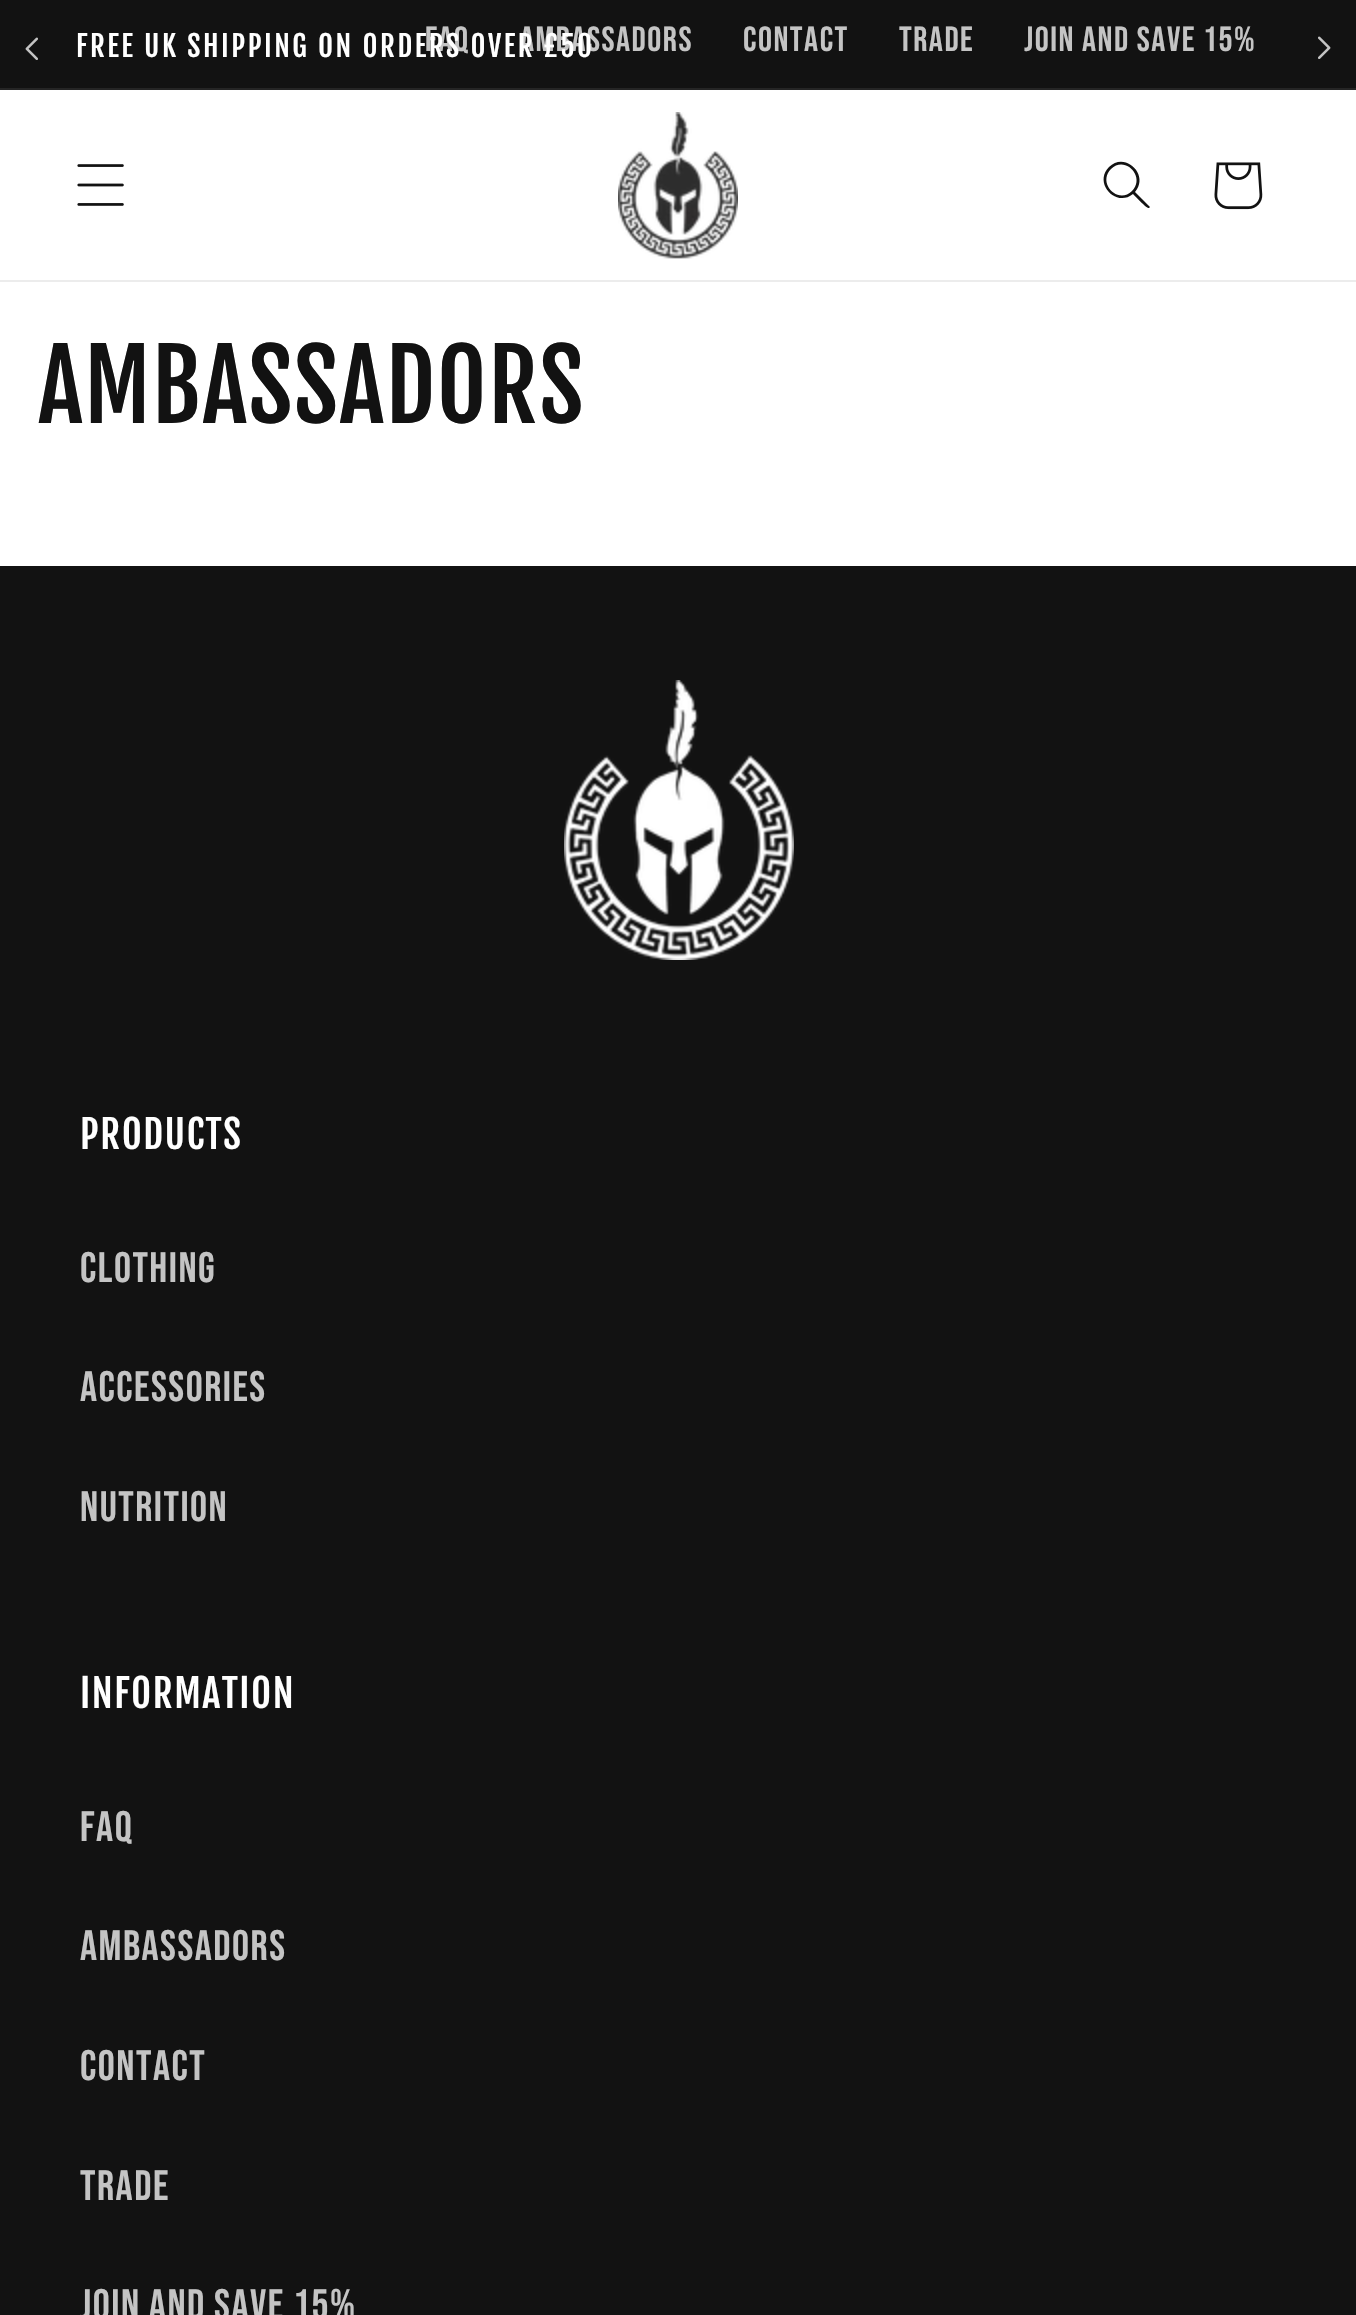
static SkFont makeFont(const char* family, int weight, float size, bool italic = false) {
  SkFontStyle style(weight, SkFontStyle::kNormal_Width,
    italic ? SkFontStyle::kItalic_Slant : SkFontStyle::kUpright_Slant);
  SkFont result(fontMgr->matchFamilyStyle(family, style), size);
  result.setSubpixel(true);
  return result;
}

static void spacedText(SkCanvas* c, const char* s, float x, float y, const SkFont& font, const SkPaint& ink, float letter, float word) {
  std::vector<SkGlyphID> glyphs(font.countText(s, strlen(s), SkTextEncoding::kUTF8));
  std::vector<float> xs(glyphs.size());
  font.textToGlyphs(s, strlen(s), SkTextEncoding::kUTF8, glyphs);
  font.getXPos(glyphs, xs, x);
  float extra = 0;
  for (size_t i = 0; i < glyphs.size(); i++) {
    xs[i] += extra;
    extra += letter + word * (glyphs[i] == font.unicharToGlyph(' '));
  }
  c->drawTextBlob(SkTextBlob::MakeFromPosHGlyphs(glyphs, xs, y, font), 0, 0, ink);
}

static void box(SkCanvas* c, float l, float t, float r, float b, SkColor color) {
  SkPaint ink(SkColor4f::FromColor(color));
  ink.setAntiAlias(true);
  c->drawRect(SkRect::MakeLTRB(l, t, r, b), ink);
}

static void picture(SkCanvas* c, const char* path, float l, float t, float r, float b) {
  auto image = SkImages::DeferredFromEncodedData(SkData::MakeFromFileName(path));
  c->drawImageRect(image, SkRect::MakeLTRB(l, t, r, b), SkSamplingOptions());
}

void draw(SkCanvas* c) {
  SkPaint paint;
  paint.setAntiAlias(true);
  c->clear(0xffffffff);
  box(c, 0, 0, 1356, 88, 0xff121212);
  box(c, 0, 88, 1356, 90, 0xff252525);
  picture(c, "img_01.png", 25, 37, 38, 60);
  SkFont face1 = makeFont("Bebas Neue", 400, 35);
  paint.setColor(0xffc4c4c4);
  spacedText(c, "FAQ", 425, 51, face1, paint, 1.5f, 0);
  spacedText(c, "Ambassadors", 520, 51, face1, paint, 1.5f, 0);
  SkFont face2 = makeFont("Fjalla One", 400, 28.75f);
  paint.setColor(0xffffffff);
  spacedText(c, "FREE UK SHIPPING ON ORDERS OVER £50", 76, 57, face2, paint, 2.5f, 0);
  picture(c, "img_02.png", 1318, 36, 1331, 59);
  paint.setColor(0xffc4c4c4);
  spacedText(c, "Contact", 743, 51, face1, paint, 1.5f, 0);
  spacedText(c, "Trade", 899, 51, face1, paint, 1.5f, 0);
  spacedText(c, "Join and save 15%", 1024, 51, face1, paint, 1.5f, 0);
  box(c, 0, 280, 1356, 282, 0xffececec);
  picture(c, "img_03.png", 77, 164, 124, 206);
  picture(c, "img_04.png", 618, 112, 738, 259);
  paint.setColor(0xff121212);
  c->drawPath(SkPathBuilder(SkPathFillType::kEvenOdd).moveTo(1132, 191).cubicTo(1118, 205, 1097, 183, 1111, 169).cubicTo(1125, 155, 1146, 177, 1132, 191).close().moveTo(1133, 194).cubicTo(1116, 208, 1093, 183, 1109, 167).cubicTo(1125, 151, 1150, 175, 1135, 192).lineTo(1150, 207).lineTo(1149, 208).cubicTo(1147, 209, 1135, 196, 1133, 194).close().detach(), paint);
  picture(c, "img_05.png", 1214, 162, 1263, 210);
  SkFont face3 = makeFont("Fjalla One", 400, 96);
  spacedText(c, "AMBASSADORS", 38, 423, face3, paint, 1.5f, 0);
  box(c, 0, 566, 1356, 2315, 0xff121212);
  picture(c, "img_06.png", 564, 680, 794, 960);
  SkFont face4 = makeFont("Fjalla One", 400, 38.5f);
  paint.setColor(0xffffffff);
  spacedText(c, "PRODUCTS", 80, 1149, face4, paint, 1.5f, 0);
  SkFont face5 = makeFont("Bebas Neue", 400, 42.5f);
  paint.setColor(0xffc4c4c4);
  spacedText(c, "Clothing", 80, 1282, face5, paint, 1.5f, 0);
  spacedText(c, "Accessories", 80, 1401, face5, paint, 1.5f, 0);
  spacedText(c, "Nutrition", 80, 1521, face5, paint, 1.5f, 0);
  paint.setColor(0xffffffff);
  spacedText(c, "INFORMATION", 80, 1708, face4, paint, 1.5f, 0);
  paint.setColor(0xffc4c4c4);
  spacedText(c, "FAQ", 80, 1841, face5, paint, 1.5f, 0);
  spacedText(c, "Ambassadors", 80, 1960, face5, paint, 1.5f, 0);
  spacedText(c, "Contact", 80, 2080, face5, paint, 1.5f, 0);
  spacedText(c, "Trade", 80, 2200, face5, paint, 1.5f, 0);
  spacedText(c, "Join and save 15%", 80, 2319, face5, paint, 1.5f, 0);
}
